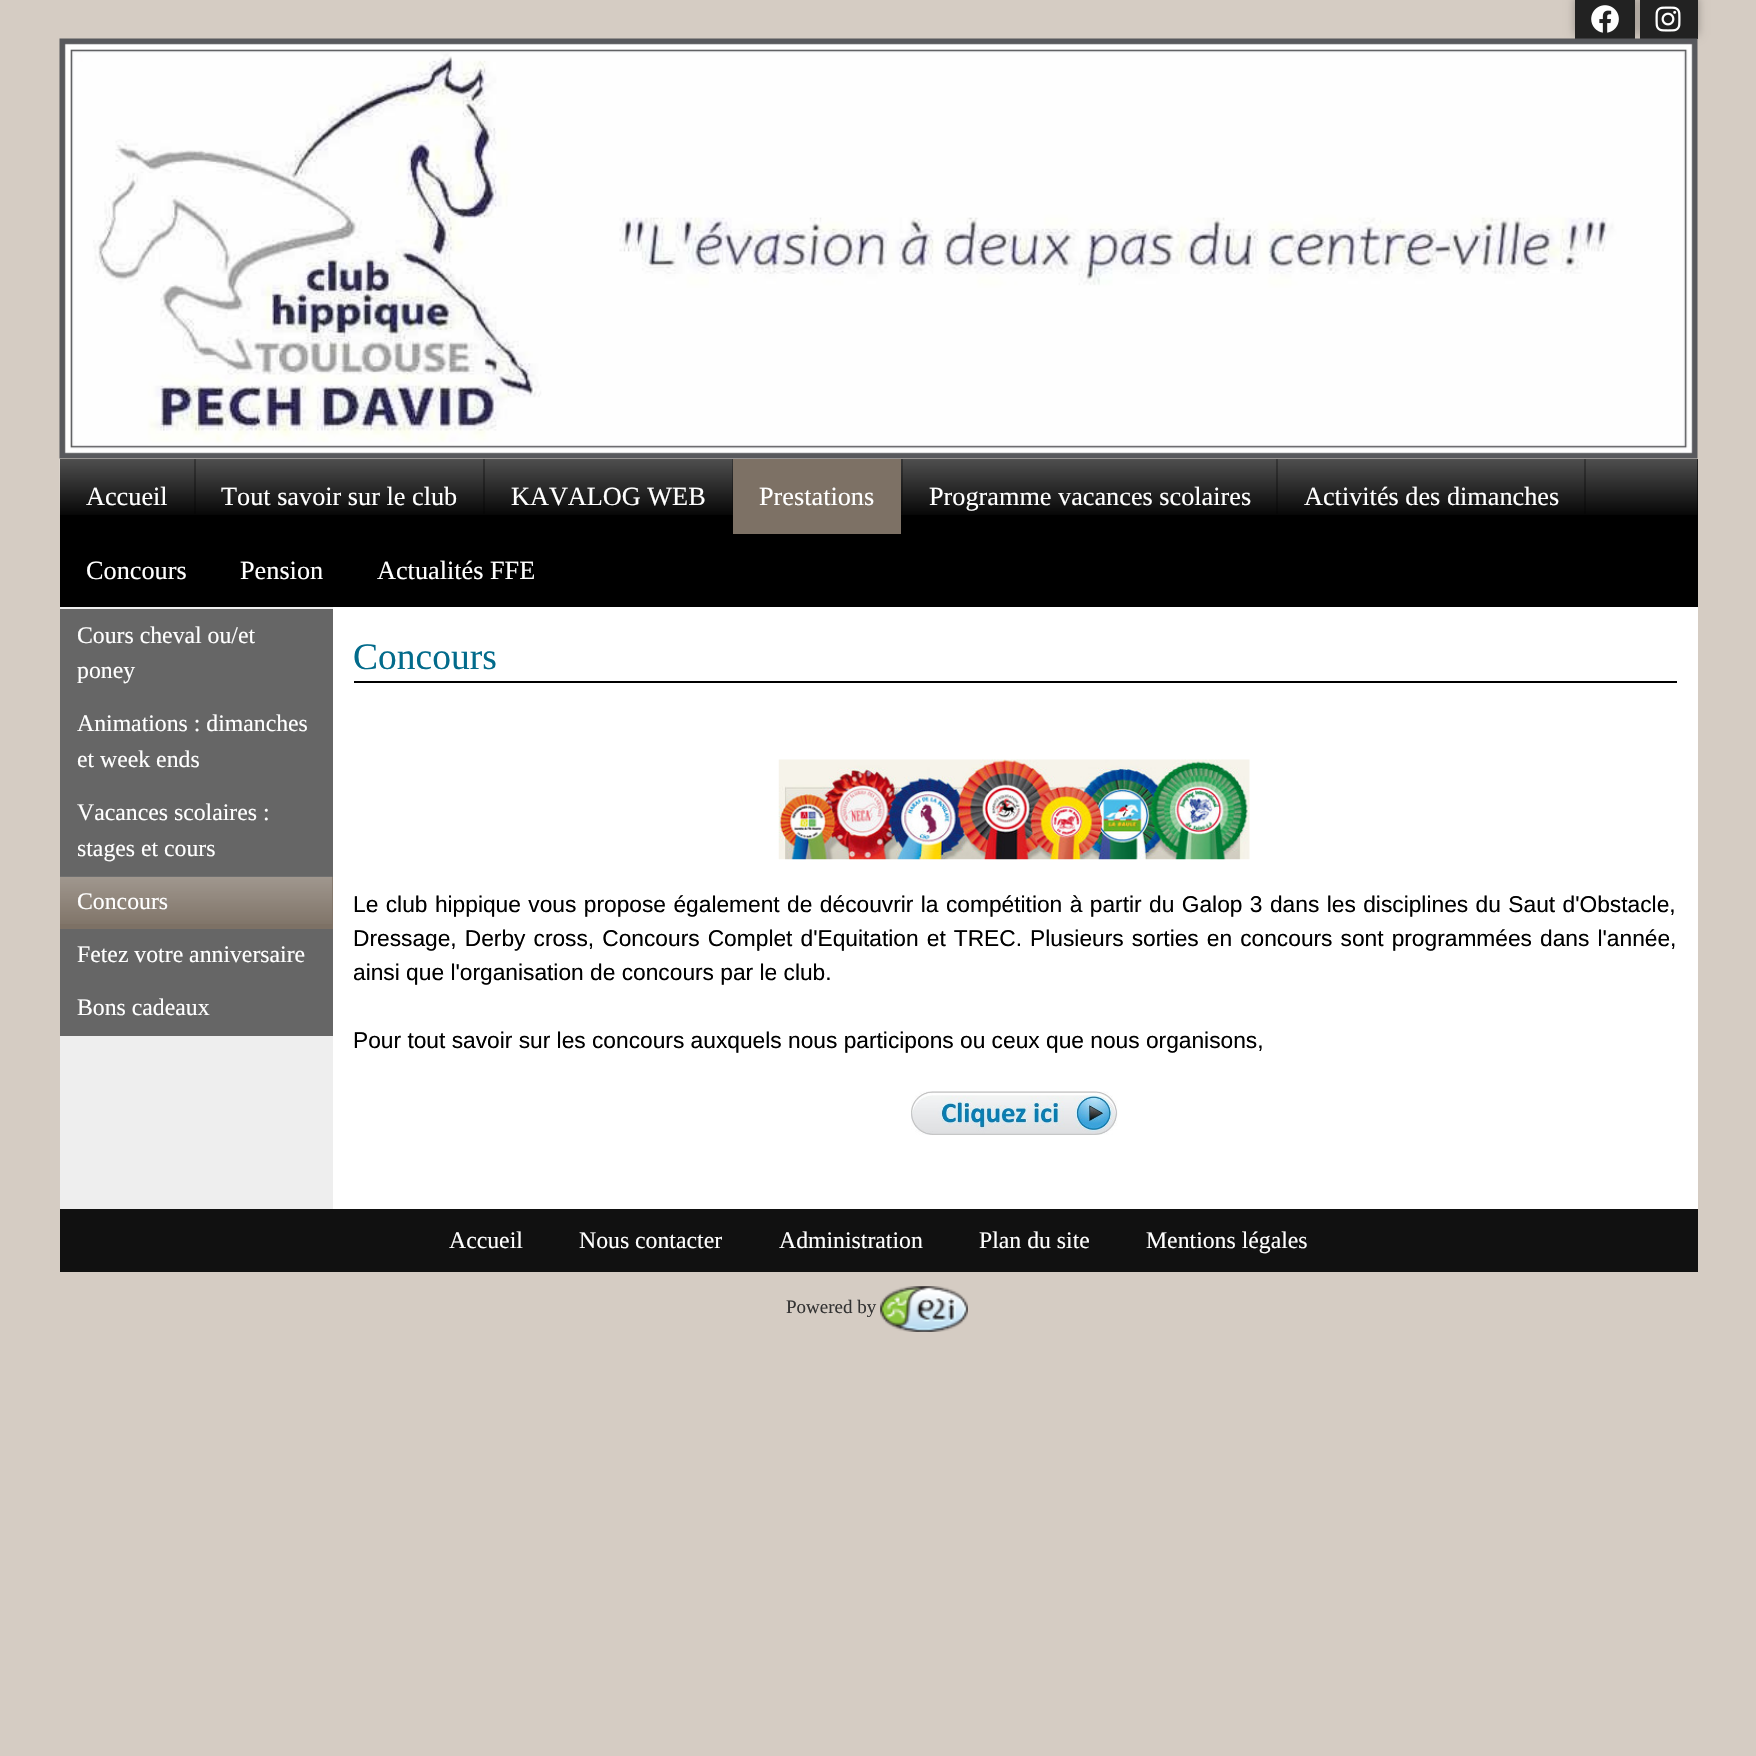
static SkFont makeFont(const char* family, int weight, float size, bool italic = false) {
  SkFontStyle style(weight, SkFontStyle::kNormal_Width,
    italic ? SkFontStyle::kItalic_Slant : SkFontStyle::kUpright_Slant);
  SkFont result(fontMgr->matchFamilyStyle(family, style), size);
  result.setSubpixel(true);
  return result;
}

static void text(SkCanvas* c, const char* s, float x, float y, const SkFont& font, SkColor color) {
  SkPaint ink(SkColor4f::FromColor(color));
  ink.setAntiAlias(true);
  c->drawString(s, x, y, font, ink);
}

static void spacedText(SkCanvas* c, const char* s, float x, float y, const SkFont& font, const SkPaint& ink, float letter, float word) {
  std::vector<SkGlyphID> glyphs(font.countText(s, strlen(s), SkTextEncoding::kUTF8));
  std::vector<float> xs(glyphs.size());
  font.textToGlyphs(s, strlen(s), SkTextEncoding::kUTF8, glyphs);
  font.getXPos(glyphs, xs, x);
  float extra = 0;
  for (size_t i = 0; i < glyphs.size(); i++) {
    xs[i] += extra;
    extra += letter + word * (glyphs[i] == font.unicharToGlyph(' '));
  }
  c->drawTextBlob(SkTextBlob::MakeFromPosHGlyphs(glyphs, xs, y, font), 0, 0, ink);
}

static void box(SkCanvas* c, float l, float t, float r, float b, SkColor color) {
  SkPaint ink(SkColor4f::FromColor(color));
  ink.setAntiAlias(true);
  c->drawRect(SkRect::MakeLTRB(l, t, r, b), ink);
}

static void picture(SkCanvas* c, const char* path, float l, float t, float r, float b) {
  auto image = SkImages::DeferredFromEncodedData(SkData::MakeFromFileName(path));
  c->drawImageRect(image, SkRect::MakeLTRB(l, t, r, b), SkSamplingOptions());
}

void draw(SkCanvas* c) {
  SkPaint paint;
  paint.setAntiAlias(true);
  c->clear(0xffd5ccc3);
  paint.setColor(0x4d000000);
  paint.setMaskFilter(SkMaskFilter::MakeBlur(kNormal_SkBlurStyle, 4.5f));
  c->drawRect(SkRect::MakeLTRB(1575, -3, 1635, 35), paint);
  paint.setMaskFilter(nullptr);
  box(c, 1575, 0, 1635, 39, 0xff222222);
  picture(c, "img_01.png", 1591, 5, 1619, 33);
  paint.setMaskFilter(SkMaskFilter::MakeBlur(kNormal_SkBlurStyle, 4.5f));
  c->drawRect(SkRect::MakeLTRB(1640, -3, 1698, 35), paint);
  paint.setMaskFilter(nullptr);
  box(c, 1640, 0, 1698, 39, 0xff222222);
  picture(c, "img_02.png", 1655, 6, 1681, 32);
  box(c, 60, 459, 1698, 607, 0xff000000);
  picture(c, "img_04.png", 59, 458, 1698, 515);
  picture(c, "img_03.png", 59, 38, 1698, 459);
  box(c, 194, 459, 196, 514, 0x4d000000);
  SkFont face1 = makeFont("Liberation Serif", 400, 26.25f);
  text(c, "Accueil", 86, 505, face1, 0xffffffff);
  box(c, 483, 459, 485, 514, 0x4d000000);
  text(c, "Tout savoir sur le club", 221, 505, face1, 0xffffffff);
  box(c, 732, 459, 733, 514, 0x4d000000);
  text(c, "KAVALOG WEB", 511, 505, face1, 0xffffffff);
  box(c, 901, 459, 903, 514, 0x4d000000);
  box(c, 733, 459, 901, 534, 0xff7d7165);
  text(c, "Prestations", 759, 505, face1, 0xffffffff);
  box(c, 1276, 459, 1278, 514, 0x4d000000);
  text(c, "Programme vacances scolaires", 929, 505, face1, 0xffffffff);
  box(c, 1584, 459, 1586, 514, 0x4d000000);
  text(c, "Activités des dimanches", 1304, 505, face1, 0xffffffff);
  text(c, "Concours", 86, 579, face1, 0xffffffff);
  text(c, "Pension", 240, 579, face1, 0xffffffff);
  text(c, "Actualités FFE", 377, 579, face1, 0xffffffff);
  box(c, 60, 607, 333, 1209, 0xffeeeeee);
  box(c, 60, 609, 333, 1036, 0xff666666);
  SkFont face2 = makeFont("Liberation Serif", 400, 23.75f);
  text(c, "Cours cheval ou/et", 77, 643, face2, 0xffffffff);
  text(c, "poney", 77, 678, face2, 0xffffffff);
  text(c, "Animations : dimanches", 77, 731, face2, 0xffffffff);
  text(c, "et week ends", 77, 767, face2, 0xffffffff);
  text(c, "Vacances scolaires :", 77, 820, face2, 0xffffffff);
  text(c, "stages et cours", 77, 856, face2, 0xffffffff);
  box(c, 60, 877, 333, 929, 0xff7d7165);
  picture(c, "img_05.png", 60, 876, 333, 924);
  text(c, "Concours", 77, 909, face2, 0xffffffff);
  text(c, "Fetez votre anniversaire", 77, 962, face2, 0xffffffff);
  text(c, "Bons cadeaux", 77, 1015, face2, 0xffffffff);
  box(c, 333, 607, 1698, 1209, 0xffffffff);
  box(c, 354, 681, 1677, 683, 0xff000000);
  SkFont face3 = makeFont("Liberation Serif", 400, 37.5f);
  text(c, "Concours", 353, 669, face3, 0xff026b8b);
  picture(c, "img_06.png", 778, 759, 1250, 860);
  SkFont face4 = makeFont("Liberation Sans", 400, 22.75f);
  paint.setColor(0xff000000);
  spacedText(c, "Le club hippique vous propose également de découvrir la compétition à partir du Galop 3 dans les disciplines du Saut d'Obstacle,", 353, 912, face4, paint, 0, 1.1f);
  spacedText(c, "Dressage, Derby cross, Concours Complet d'Equitation et TREC. Plusieurs sorties en concours sont programmées dans l'année,", 353, 946, face4, paint, 0, 1.75f);
  text(c, "ainsi que l'organisation de concours par le club.", 353, 980, face4, 0xff000000);
  text(c, "Pour tout savoir sur les concours auxquels nous participons ou ceux que nous organisons,", 353, 1048, face4, 0xff000000);
  picture(c, "img_07.png", 911, 1091, 1118, 1135);
  box(c, 60, 1209, 1698, 1272, 0xff111111);
  text(c, "Accueil", 449, 1248, face2, 0xffffffff);
  text(c, "Nous contacter", 579, 1248, face2, 0xffffffff);
  text(c, "Administration", 779, 1248, face2, 0xffffffff);
  text(c, "Plan du site", 979, 1248, face2, 0xffffffff);
  text(c, "Mentions légales", 1146, 1248, face2, 0xffffffff);
  SkFont face5 = makeFont("Liberation Serif", 400, 19);
  text(c, "Powered by", 786, 1313, face5, 0xff333333);
  picture(c, "img_08.png", 880, 1286, 968, 1332);
}
